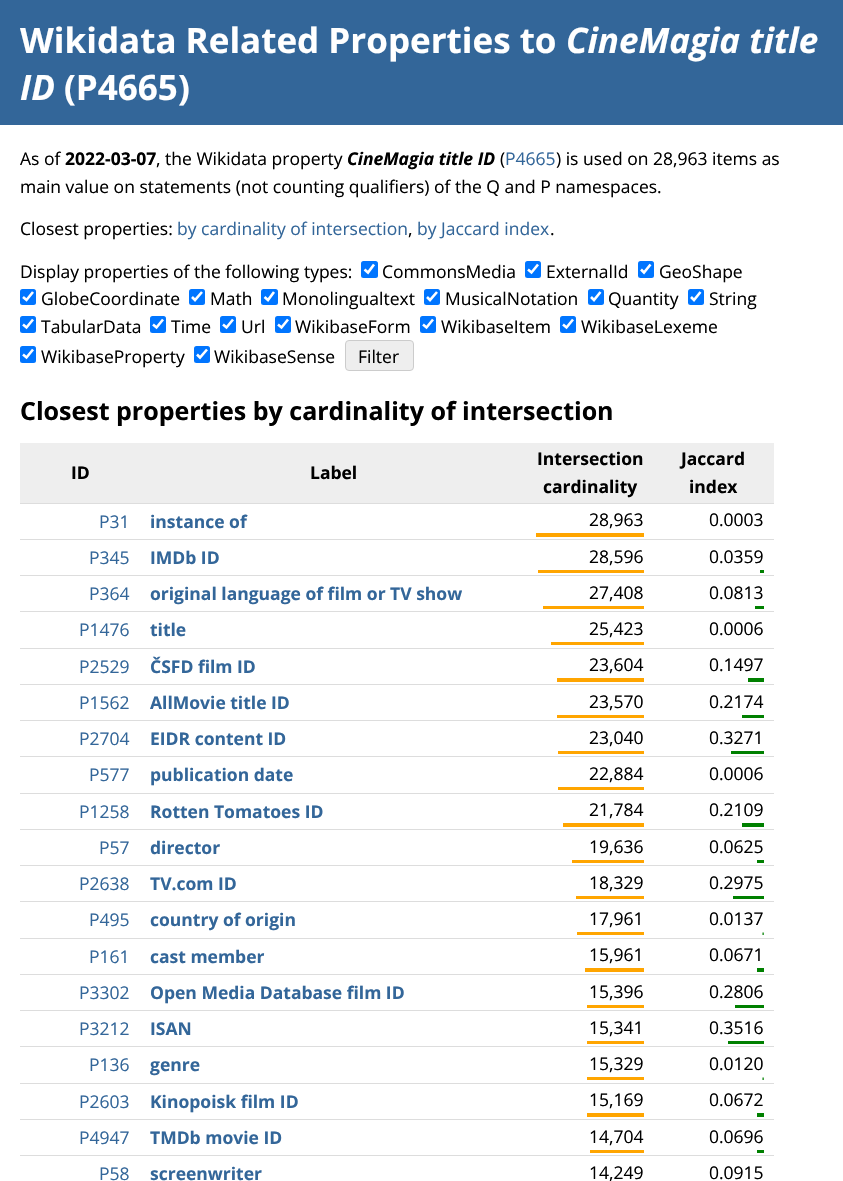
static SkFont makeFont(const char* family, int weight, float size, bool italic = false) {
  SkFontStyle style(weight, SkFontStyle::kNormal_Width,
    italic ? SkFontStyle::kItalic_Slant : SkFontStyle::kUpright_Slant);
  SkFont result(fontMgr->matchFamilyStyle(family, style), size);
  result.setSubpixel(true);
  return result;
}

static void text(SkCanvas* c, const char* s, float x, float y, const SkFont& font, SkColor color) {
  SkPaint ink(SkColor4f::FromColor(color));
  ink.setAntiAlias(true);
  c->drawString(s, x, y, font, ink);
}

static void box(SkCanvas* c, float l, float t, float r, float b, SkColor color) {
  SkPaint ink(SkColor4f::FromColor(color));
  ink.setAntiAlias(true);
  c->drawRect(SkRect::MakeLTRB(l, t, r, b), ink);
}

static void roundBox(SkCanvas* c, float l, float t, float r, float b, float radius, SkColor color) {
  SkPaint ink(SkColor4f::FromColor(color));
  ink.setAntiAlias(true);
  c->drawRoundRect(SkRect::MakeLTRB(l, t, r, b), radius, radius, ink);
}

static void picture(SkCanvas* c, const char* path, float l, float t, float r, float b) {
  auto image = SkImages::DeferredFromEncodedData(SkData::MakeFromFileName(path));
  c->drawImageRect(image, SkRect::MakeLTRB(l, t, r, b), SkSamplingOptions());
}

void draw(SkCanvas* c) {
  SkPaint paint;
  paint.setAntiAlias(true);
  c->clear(0xffffffff);
  box(c, 0, 0, 843, 125, 0xff336699);
  SkFont face1 = makeFont("Open Sans", 700, 35);
  text(c, "Wikidata Related Properties to", 20, 53, face1, 0xffffffff);
  SkFont face2 = makeFont("Open Sans", 700, 35, true);
  text(c, "CineMagia title", 566, 53, face2, 0xffffffff);
  text(c, "ID", 20, 100, face2, 0xffffffff);
  text(c, "(P4665)", 64, 100, face1, 0xffffffff);
  SkFont face3 = makeFont("Open Sans", 400, 17.5f);
  text(c, "As of", 20, 165, face3, 0xff000000);
  SkFont face4 = makeFont("Open Sans", 700, 17.5f);
  text(c, "2022-03-07", 65, 165, face4, 0xff000000);
  text(c, ", the Wikidata property", 156, 165, face3, 0xff000000);
  SkFont face5 = makeFont("Open Sans", 700, 17.5f, true);
  text(c, "CineMagia title ID", 347, 165, face5, 0xff000000);
  text(c, "(", 500, 165, face3, 0xff000000);
  text(c, "P4665", 505, 165, face3, 0xff336699);
  text(c, ") is used on 28,963 items as", 556, 165, face3, 0xff000000);
  text(c, "main value on statements (not counting qualifiers) of the Q and P namespaces.", 20, 193, face3, 0xff000000);
  text(c, "Closest properties:", 20, 235, face3, 0xff000000);
  text(c, "by cardinality of intersection", 177, 235, face3, 0xff336699);
  text(c, ",", 408, 235, face3, 0xff000000);
  text(c, "by Jaccard index", 417, 235, face3, 0xff336699);
  text(c, ".", 550, 235, face3, 0xff000000);
  text(c, "Display properties of the following types:", 20, 278, face3, 0xff000000);
  roundBox(c, 361, 261, 378, 278, 2.5f, 0xff0075ff);
  paint.setStyle(SkPaint::kStroke_Style);
  paint.setStrokeWidth(2.6f);
  paint.setColor(0xffffffff);
  c->drawPath(SkPathBuilder().moveTo(364.5f, 269.5f).lineTo(368, 272.5f).lineTo(374, 264.5f).detach(), paint);
  text(c, "CommonsMedia", 382, 278, face3, 0xff000000);
  roundBox(c, 525, 261, 541, 278, 2.5f, 0xff0075ff);
  c->drawPath(SkPathBuilder().moveTo(528, 269.5f).lineTo(531.5f, 272.5f).lineTo(538, 264.5f).detach(), paint);
  text(c, "ExternalId", 546, 278, face3, 0xff000000);
  roundBox(c, 638, 261, 654, 278, 2.5f, 0xff0075ff);
  c->drawPath(SkPathBuilder().moveTo(641, 269.5f).lineTo(644, 272.5f).lineTo(650.5f, 264.5f).detach(), paint);
  text(c, "GeoShape", 659, 278, face3, 0xff000000);
  roundBox(c, 20, 289, 36, 305, 2.5f, 0xff0075ff);
  c->drawPath(SkPathBuilder().moveTo(23, 297).lineTo(26.5f, 300).lineTo(33, 292).detach(), paint);
  text(c, "GlobeCoordinate", 41, 305, face3, 0xff000000);
  roundBox(c, 189, 289, 205, 305, 2.5f, 0xff0075ff);
  c->drawPath(SkPathBuilder().moveTo(192, 297).lineTo(195, 300).lineTo(202, 292).detach(), paint);
  text(c, "Math", 210, 305, face3, 0xff000000);
  roundBox(c, 261, 289, 278, 305, 2.5f, 0xff0075ff);
  c->drawPath(SkPathBuilder().moveTo(264.5f, 297).lineTo(268, 300).lineTo(274, 292).detach(), paint);
  text(c, "Monolingualtext", 282, 305, face3, 0xff000000);
  roundBox(c, 424, 289, 440, 305, 2.5f, 0xff0075ff);
  c->drawPath(SkPathBuilder().moveTo(427, 297).lineTo(430, 300).lineTo(437, 292).detach(), paint);
  text(c, "MusicalNotation", 445, 305, face3, 0xff000000);
  roundBox(c, 588, 289, 604, 305, 2.5f, 0xff0075ff);
  c->drawPath(SkPathBuilder().moveTo(591, 297).lineTo(594, 300).lineTo(600.5f, 292).detach(), paint);
  text(c, "Quantity", 608, 305, face3, 0xff000000);
  roundBox(c, 688, 289, 704, 305, 2.5f, 0xff0075ff);
  c->drawPath(SkPathBuilder().moveTo(691, 297).lineTo(694, 300).lineTo(700.5f, 292).detach(), paint);
  text(c, "String", 709, 305, face3, 0xff000000);
  roundBox(c, 20, 316, 36, 333, 2.5f, 0xff0075ff);
  c->drawPath(SkPathBuilder().moveTo(23, 324.5f).lineTo(26.5f, 327.5f).lineTo(33, 319.5f).detach(), paint);
  text(c, "TabularData", 41, 333, face3, 0xff000000);
  roundBox(c, 150, 316, 166, 333, 2.5f, 0xff0075ff);
  c->drawPath(SkPathBuilder().moveTo(153, 324.5f).lineTo(156.5f, 327.5f).lineTo(163, 319.5f).detach(), paint);
  text(c, "Time", 171, 333, face3, 0xff000000);
  roundBox(c, 220, 316, 236, 333, 2.5f, 0xff0075ff);
  c->drawPath(SkPathBuilder().moveTo(223, 324.5f).lineTo(226.5f, 327.5f).lineTo(233, 319.5f).detach(), paint);
  text(c, "Url", 241, 333, face3, 0xff000000);
  roundBox(c, 275, 316, 291, 333, 2.5f, 0xff0075ff);
  c->drawPath(SkPathBuilder().moveTo(278, 324.5f).lineTo(281.5f, 327.5f).lineTo(288, 319.5f).detach(), paint);
  text(c, "WikibaseForm", 295, 333, face3, 0xff000000);
  roundBox(c, 420, 316, 436, 333, 2.5f, 0xff0075ff);
  c->drawPath(SkPathBuilder().moveTo(423, 324.5f).lineTo(426.5f, 327.5f).lineTo(433, 319.5f).detach(), paint);
  text(c, "WikibaseItem", 441, 333, face3, 0xff000000);
  roundBox(c, 560, 316, 576, 333, 2.5f, 0xff0075ff);
  c->drawPath(SkPathBuilder().moveTo(563, 324.5f).lineTo(566.5f, 327.5f).lineTo(573, 319.5f).detach(), paint);
  text(c, "WikibaseLexeme", 581, 333, face3, 0xff000000);
  roundBox(c, 20, 346, 36, 363, 2.5f, 0xff0075ff);
  c->drawPath(SkPathBuilder().moveTo(23, 354.5f).lineTo(26.5f, 357.5f).lineTo(33, 349.5f).detach(), paint);
  text(c, "WikibaseProperty", 41, 363, face3, 0xff000000);
  roundBox(c, 194, 346, 210, 363, 2.5f, 0xff0075ff);
  c->drawPath(SkPathBuilder().moveTo(197, 354.5f).lineTo(200, 357.5f).lineTo(207, 349.5f).detach(), paint);
  text(c, "WikibaseSense", 214, 363, face3, 0xff000000);
  paint.setStyle(SkPaint::kFill_Style);
  paint.setColor(0xffeeeeee);
  c->drawRoundRect(SkRect::MakeLTRB(345.5f, 340.5f, 413.5f, 370.5f), 3.5f, 3.5f, paint);
  paint.setStyle(SkPaint::kStroke_Style);
  paint.setStrokeWidth(1);
  paint.setColor(0xffcccccc);
  c->drawRoundRect(SkRect::MakeLTRB(345.5f, 340.5f, 413.5f, 370.5f), 3.5f, 3.5f, paint);
  text(c, "Filter", 358, 363, face3, 0xff000000);
  SkFont face6 = makeFont("Open Sans", 700, 25);
  text(c, "Closest properties by cardinality of intersection", 20, 420, face6, 0xff000000);
  box(c, 20, 443, 774, 503, 0xffeeeeee);
  text(c, "ID", 71, 479, face4, 0xff000000);
  text(c, "Label", 310, 479, face4, 0xff000000);
  text(c, "Intersection", 537, 465, face4, 0xff000000);
  text(c, "cardinality", 543, 493, face4, 0xff000000);
  text(c, "Jaccard", 681, 465, face4, 0xff000000);
  text(c, "index", 689, 493, face4, 0xff000000);
  text(c, "P31", 99, 528, face3, 0xff336699);
  text(c, "instance of", 150, 528, face4, 0xff336699);
  text(c, "28,963", 589, 526, face3, 0xff000000);
  box(c, 536, 533, 644, 537, 0xffffa500);
  box(c, 20, 503, 774, 504, 0xffdddddd);
  text(c, "0.0003", 709, 526, face3, 0xff000000);
  text(c, "P345", 89, 564, face3, 0xff336699);
  text(c, "IMDb ID", 150, 564, face4, 0xff336699);
  text(c, "28,596", 589, 563, face3, 0xff000000);
  box(c, 538, 570, 644, 573, 0xffffa500);
  box(c, 20, 539, 774, 540, 0xffdddddd);
  text(c, "0.0359", 709, 563, face3, 0xff000000);
  box(c, 760, 570, 764, 573, 0xff008000);
  text(c, "P364", 89, 600, face3, 0xff336699);
  text(c, "original language of film or TV show", 150, 600, face4, 0xff336699);
  text(c, "27,408", 589, 599, face3, 0xff000000);
  box(c, 543, 606, 644, 609, 0xffffa500);
  box(c, 20, 575, 774, 576, 0xffdddddd);
  text(c, "0.0813", 709, 599, face3, 0xff000000);
  box(c, 755, 606, 764, 609, 0xff008000);
  text(c, "P1476", 79, 636, face3, 0xff336699);
  text(c, "title", 150, 636, face4, 0xff336699);
  text(c, "25,423", 589, 635, face3, 0xff000000);
  box(c, 551, 642, 644, 645, 0xffffa500);
  box(c, 20, 611, 774, 612, 0xffdddddd);
  text(c, "0.0006", 709, 635, face3, 0xff000000);
  text(c, "P2529", 79, 673, face3, 0xff336699);
  text(c, "ČSFD film ID", 150, 673, face4, 0xff336699);
  text(c, "23,604", 589, 671, face3, 0xff000000);
  box(c, 557, 678, 644, 682, 0xffffa500);
  box(c, 20, 648, 774, 649, 0xffdddddd);
  text(c, "0.1497", 709, 671, face3, 0xff000000);
  box(c, 748, 678, 764, 682, 0xff008000);
  text(c, "P1562", 79, 709, face3, 0xff336699);
  text(c, "AllMovie title ID", 150, 709, face4, 0xff336699);
  text(c, "23,570", 589, 708, face3, 0xff000000);
  box(c, 557, 715, 644, 718, 0xffffa500);
  box(c, 20, 684, 774, 685, 0xffdddddd);
  text(c, "0.2174", 709, 708, face3, 0xff000000);
  box(c, 742, 715, 764, 718, 0xff008000);
  text(c, "P2704", 79, 745, face3, 0xff336699);
  text(c, "EIDR content ID", 150, 745, face4, 0xff336699);
  text(c, "23,040", 589, 744, face3, 0xff000000);
  box(c, 558, 751, 644, 754, 0xffffa500);
  box(c, 20, 720, 774, 721, 0xffdddddd);
  text(c, "0.3271", 709, 744, face3, 0xff000000);
  box(c, 731, 751, 764, 754, 0xff008000);
  text(c, "P577", 89, 781, face3, 0xff336699);
  text(c, "publication date", 150, 781, face4, 0xff336699);
  text(c, "22,884", 589, 780, face3, 0xff000000);
  box(c, 558, 787, 644, 790, 0xffffa500);
  box(c, 20, 756, 774, 757, 0xffdddddd);
  text(c, "0.0006", 709, 780, face3, 0xff000000);
  text(c, "P1258", 79, 818, face3, 0xff336699);
  text(c, "Rotten Tomatoes ID", 150, 818, face4, 0xff336699);
  text(c, "21,784", 589, 816, face3, 0xff000000);
  box(c, 563, 823, 644, 827, 0xffffa500);
  box(c, 20, 793, 774, 794, 0xffdddddd);
  text(c, "0.2109", 709, 816, face3, 0xff000000);
  box(c, 742, 823, 764, 827, 0xff008000);
  text(c, "P57", 99, 854, face3, 0xff336699);
  text(c, "director", 150, 854, face4, 0xff336699);
  text(c, "19,636", 589, 853, face3, 0xff000000);
  box(c, 572, 860, 644, 863, 0xffffa500);
  box(c, 20, 829, 774, 830, 0xffdddddd);
  text(c, "0.0625", 709, 853, face3, 0xff000000);
  box(c, 757, 860, 764, 863, 0xff008000);
  text(c, "P2638", 79, 890, face3, 0xff336699);
  text(c, "TV.com ID", 150, 890, face4, 0xff336699);
  text(c, "18,329", 589, 889, face3, 0xff000000);
  box(c, 576, 896, 644, 899, 0xffffa500);
  box(c, 20, 865, 774, 866, 0xffdddddd);
  text(c, "0.2975", 709, 889, face3, 0xff000000);
  box(c, 733, 896, 764, 899, 0xff008000);
  text(c, "P495", 89, 926, face3, 0xff336699);
  text(c, "country of origin", 150, 926, face4, 0xff336699);
  text(c, "17,961", 589, 925, face3, 0xff000000);
  box(c, 577, 932, 644, 935, 0xffffa500);
  box(c, 20, 901, 774, 902, 0xffdddddd);
  text(c, "0.0137", 709, 925, face3, 0xff000000);
  picture(c, "img_01.png", 762, 932, 764, 935);
  text(c, "P161", 89, 963, face3, 0xff336699);
  text(c, "cast member", 150, 963, face4, 0xff336699);
  text(c, "15,961", 589, 961, face3, 0xff000000);
  box(c, 585, 968, 644, 972, 0xffffa500);
  box(c, 20, 938, 774, 939, 0xffdddddd);
  text(c, "0.0671", 709, 961, face3, 0xff000000);
  box(c, 757, 968, 764, 972, 0xff008000);
  text(c, "P3302", 79, 999, face3, 0xff336699);
  text(c, "Open Media Database film ID", 150, 999, face4, 0xff336699);
  text(c, "15,396", 589, 998, face3, 0xff000000);
  box(c, 587, 1005, 644, 1008, 0xffffa500);
  box(c, 20, 974, 774, 975, 0xffdddddd);
  text(c, "0.2806", 709, 998, face3, 0xff000000);
  box(c, 735, 1005, 764, 1008, 0xff008000);
  text(c, "P3212", 79, 1035, face3, 0xff336699);
  text(c, "ISAN", 150, 1035, face4, 0xff336699);
  text(c, "15,341", 589, 1034, face3, 0xff000000);
  box(c, 587, 1041, 644, 1044, 0xffffa500);
  box(c, 20, 1010, 774, 1011, 0xffdddddd);
  text(c, "0.3516", 709, 1034, face3, 0xff000000);
  box(c, 728, 1041, 764, 1044, 0xff008000);
  text(c, "P136", 89, 1071, face3, 0xff336699);
  text(c, "genre", 150, 1071, face4, 0xff336699);
  text(c, "15,329", 589, 1070, face3, 0xff000000);
  box(c, 587, 1077, 644, 1080, 0xffffa500);
  box(c, 20, 1046, 774, 1047, 0xffdddddd);
  text(c, "0.0120", 709, 1070, face3, 0xff000000);
  picture(c, "img_01.png", 762, 1077, 764, 1080);
  text(c, "P2603", 79, 1108, face3, 0xff336699);
  text(c, "Kinopoisk film ID", 150, 1108, face4, 0xff336699);
  text(c, "15,169", 589, 1106, face3, 0xff000000);
  box(c, 587, 1113, 644, 1117, 0xffffa500);
  box(c, 20, 1083, 774, 1084, 0xffdddddd);
  text(c, "0.0672", 709, 1106, face3, 0xff000000);
  box(c, 757, 1113, 764, 1117, 0xff008000);
  text(c, "P4947", 79, 1144, face3, 0xff336699);
  text(c, "TMDb movie ID", 150, 1144, face4, 0xff336699);
  text(c, "14,704", 589, 1143, face3, 0xff000000);
  box(c, 590, 1150, 644, 1153, 0xffffa500);
  box(c, 20, 1119, 774, 1120, 0xffdddddd);
  text(c, "0.0696", 709, 1143, face3, 0xff000000);
  box(c, 757, 1150, 764, 1153, 0xff008000);
  text(c, "P58", 99, 1180, face3, 0xff336699);
  text(c, "screenwriter", 150, 1180, face4, 0xff336699);
  text(c, "14,249", 589, 1179, face3, 0xff000000);
  box(c, 20, 1155, 774, 1156, 0xffdddddd);
  text(c, "0.0915", 709, 1179, face3, 0xff000000);
}
